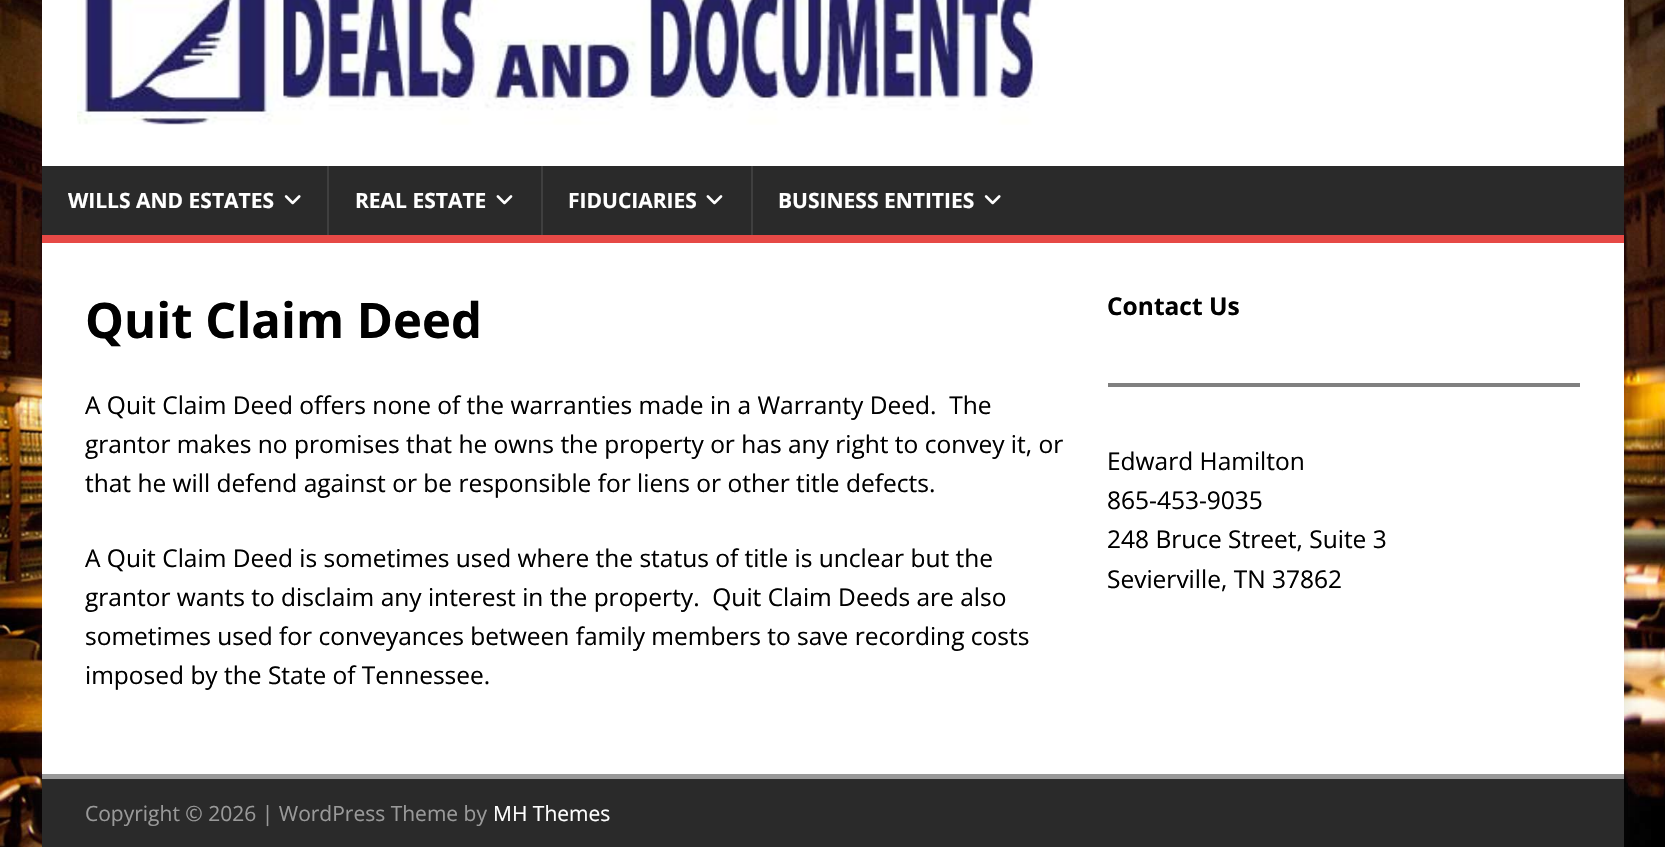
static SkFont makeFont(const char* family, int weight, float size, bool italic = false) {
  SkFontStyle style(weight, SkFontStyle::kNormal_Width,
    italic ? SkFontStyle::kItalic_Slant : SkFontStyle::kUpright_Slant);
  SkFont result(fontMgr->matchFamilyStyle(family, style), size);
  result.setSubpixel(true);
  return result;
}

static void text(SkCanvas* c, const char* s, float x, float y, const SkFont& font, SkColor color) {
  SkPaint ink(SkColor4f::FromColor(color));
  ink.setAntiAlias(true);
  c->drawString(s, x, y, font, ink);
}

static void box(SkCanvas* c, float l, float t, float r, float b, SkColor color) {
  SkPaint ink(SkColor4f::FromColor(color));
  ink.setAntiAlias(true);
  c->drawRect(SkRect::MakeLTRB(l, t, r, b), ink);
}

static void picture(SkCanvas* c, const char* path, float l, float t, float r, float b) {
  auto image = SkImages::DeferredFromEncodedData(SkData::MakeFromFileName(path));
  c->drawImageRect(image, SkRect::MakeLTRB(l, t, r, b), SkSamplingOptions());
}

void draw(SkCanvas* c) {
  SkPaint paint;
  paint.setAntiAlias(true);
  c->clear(0xffffffff);
  picture(c, "img_01.png", 0, 0, 1665, 847);
  paint.setColor(0x2b323232);
  paint.setMaskFilter(SkMaskFilter::MakeBlur(kNormal_SkBlurStyle, 9));
  c->drawRect(SkRect::MakeLTRB(42, -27, 1624, 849), paint);
  paint.setMaskFilter(nullptr);
  box(c, 42, 0, 1624, 166, 0xffffffff);
  picture(c, "img_02.png", 77, 0, 1040, 125);
  box(c, 42, 166, 1624, 235, 0xff2a2a2a);
  box(c, 42, 235, 1624, 243, 0xffe64946);
  SkFont face1 = makeFont("Open Sans", 700, 21);
  text(c, "WILLS AND ESTATES", 68, 208, face1, 0xffffffff);
  picture(c, "img_03.png", 284, 195, 301, 205);
  box(c, 327, 166, 329, 235, 0xff3f3f3f);
  text(c, "REAL ESTATE", 355, 208, face1, 0xffffffff);
  picture(c, "img_04.png", 496, 195, 513, 205);
  box(c, 541, 166, 543, 235, 0xff3f3f3f);
  text(c, "FIDUCIARIES", 568, 208, face1, 0xffffffff);
  picture(c, "img_04.png", 706, 195, 723, 205);
  box(c, 751, 166, 753, 235, 0xff3f3f3f);
  text(c, "BUSINESS ENTITIES", 778, 208, face1, 0xffffffff);
  picture(c, "img_03.png", 984, 195, 1001, 205);
  box(c, 42, 243, 1624, 774, 0xffffffff);
  SkFont face2 = makeFont("Open Sans", 700, 49);
  text(c, "Quit Claim Deed", 85, 338, face2, 0xff000000);
  SkFont face3 = makeFont("Open Sans", 400, 24.5f);
  text(c, "A Quit Claim Deed offers none of the warranties made in a Warranty Deed.  The", 85, 414, face3, 0xff000000);
  text(c, "grantor makes no promises that he owns the property or has any right to convey it, or", 85, 453, face3, 0xff000000);
  text(c, "that he will defend against or be responsible for liens or other title defects.", 85, 492, face3, 0xff000000);
  text(c, "A Quit Claim Deed is sometimes used where the status of title is unclear but the", 85, 567, face3, 0xff000000);
  text(c, "grantor wants to disclaim any interest in the property.  Quit Claim Deeds are also", 85, 606, face3, 0xff000000);
  text(c, "sometimes used for conveyances between family members to save recording costs", 85, 645, face3, 0xff000000);
  text(c, "imposed by the State of Tennessee.", 85, 684, face3, 0xff000000);
  SkFont face4 = makeFont("Open Sans", 700, 24.5f);
  text(c, "Contact Us", 1107, 315, face4, 0xff000000);
  box(c, 1108, 383, 1580, 387, 0xff808080);
  text(c, "Edward Hamilton", 1107, 470, face3, 0xff000000);
  text(c, "865-453-9035", 1107, 509, face3, 0xff000000);
  text(c, "248 Bruce Street, Suite 3", 1107, 548, face3, 0xff000000);
  text(c, "Sevierville, TN 37862", 1107, 588, face3, 0xff000000);
  box(c, 42, 779, 1624, 847, 0xff2a2a2a);
  box(c, 42, 774, 1624, 779, 0xff999999);
  SkFont face5 = makeFont("Open Sans", 400, 21);
  text(c, "Copyright © 2026 | WordPress Theme by", 85, 821, face5, 0xff999999);
  text(c, "MH Themes", 493, 821, face5, 0xffffffff);
}
